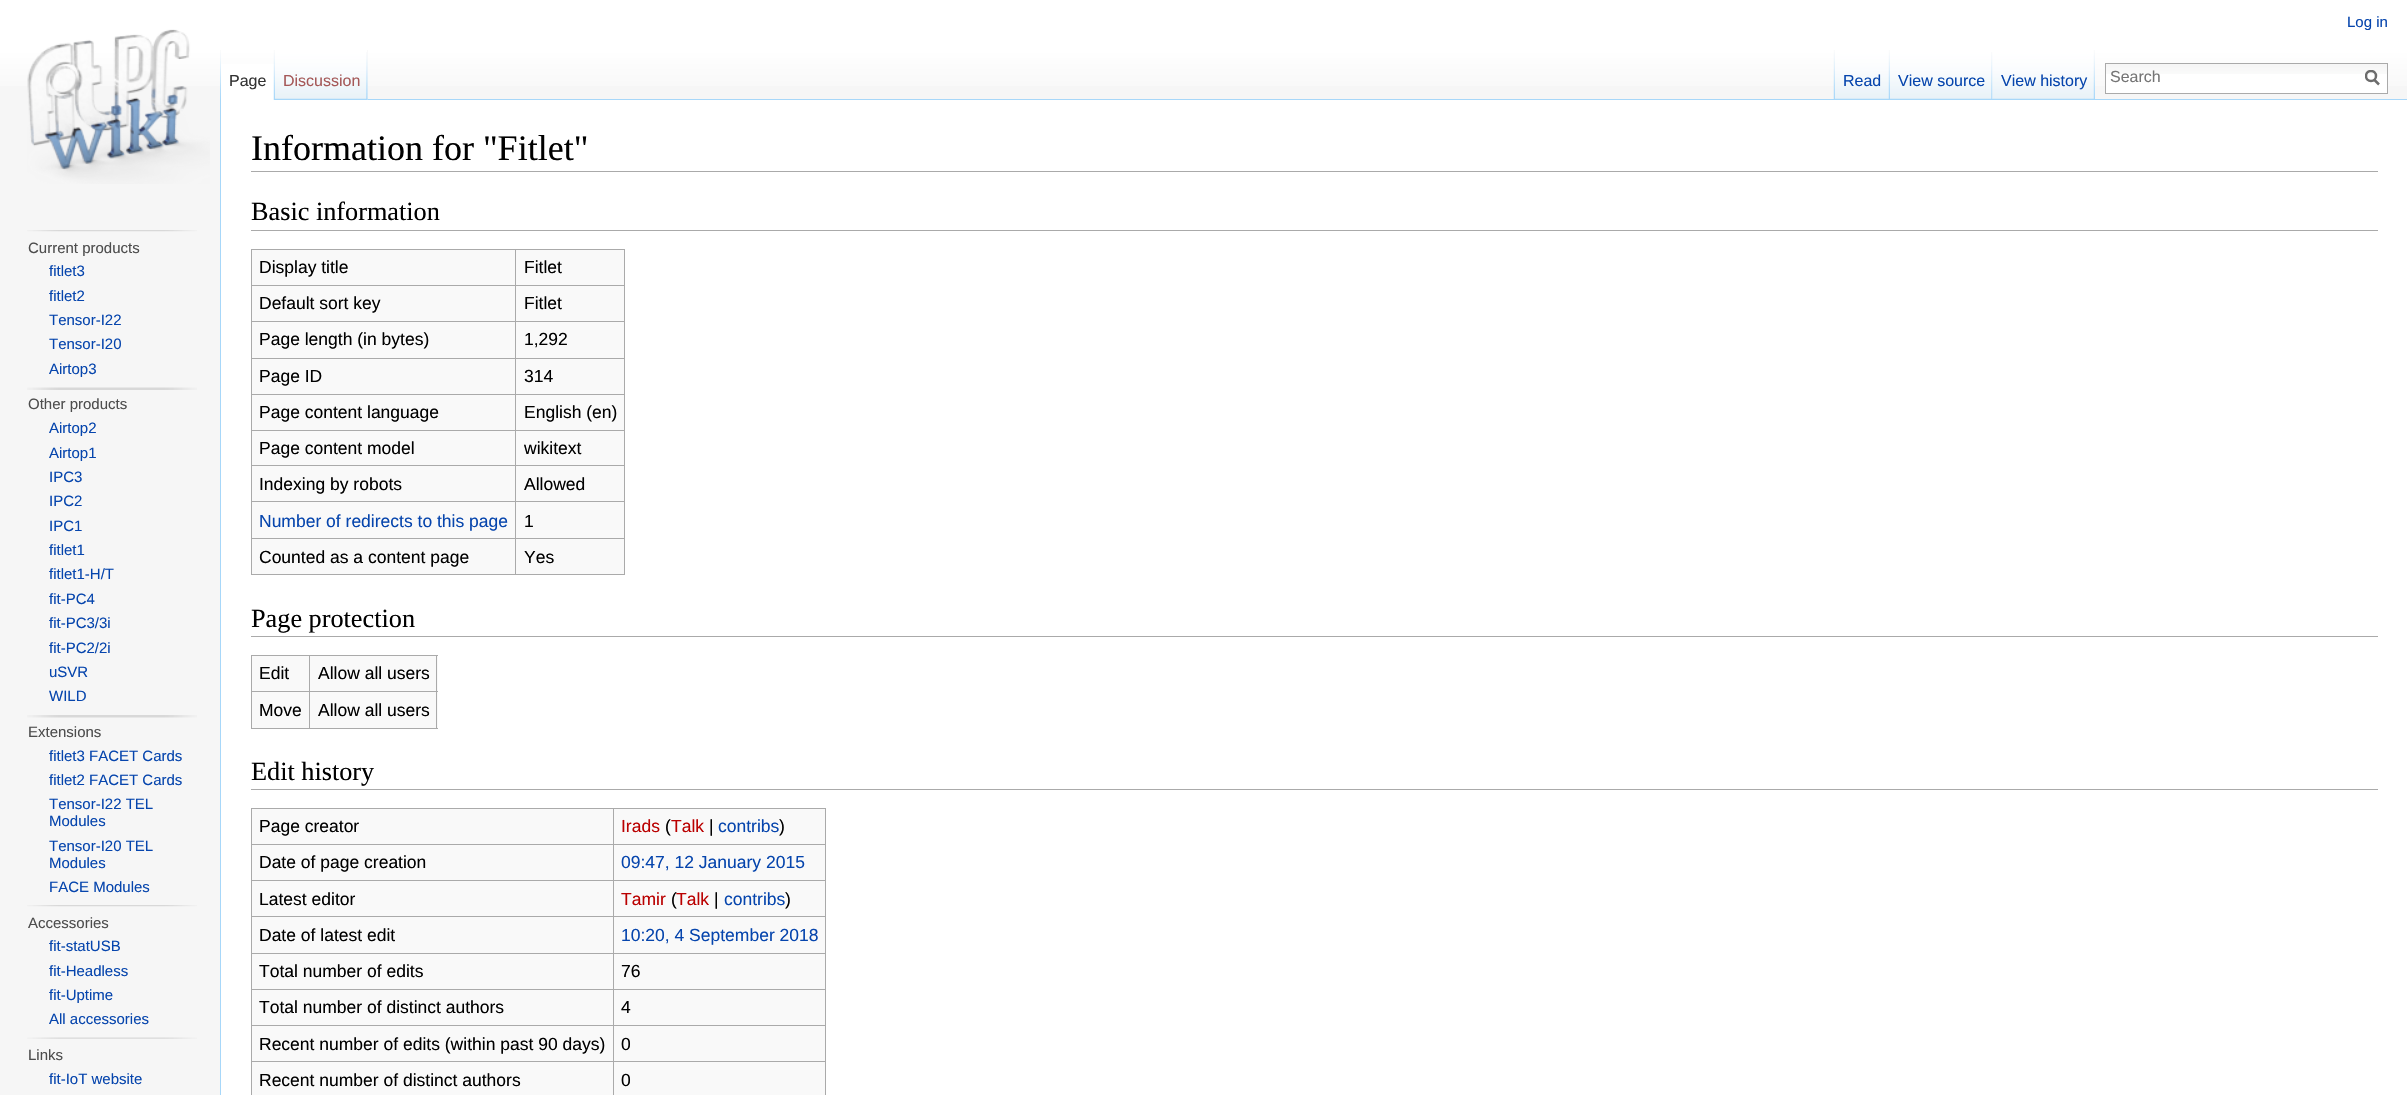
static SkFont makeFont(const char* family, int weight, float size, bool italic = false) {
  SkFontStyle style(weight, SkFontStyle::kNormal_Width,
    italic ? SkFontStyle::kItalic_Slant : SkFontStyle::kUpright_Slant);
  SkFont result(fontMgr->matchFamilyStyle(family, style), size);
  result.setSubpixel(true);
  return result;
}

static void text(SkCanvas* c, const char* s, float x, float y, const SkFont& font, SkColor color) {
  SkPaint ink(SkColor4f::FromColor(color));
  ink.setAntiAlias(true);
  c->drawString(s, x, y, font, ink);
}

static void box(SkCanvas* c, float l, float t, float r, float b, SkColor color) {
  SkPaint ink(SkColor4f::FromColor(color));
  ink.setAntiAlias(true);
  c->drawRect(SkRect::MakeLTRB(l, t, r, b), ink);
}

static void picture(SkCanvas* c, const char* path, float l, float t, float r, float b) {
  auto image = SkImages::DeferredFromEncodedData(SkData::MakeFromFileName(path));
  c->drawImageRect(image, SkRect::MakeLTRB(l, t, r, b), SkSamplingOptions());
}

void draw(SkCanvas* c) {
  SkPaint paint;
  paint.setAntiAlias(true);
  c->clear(0xfff6f6f6);
  {
    const SkColor colors[] = {0xffffffff, 0xfff6f6f6};
    const float stops[] = {0.5f, 1};
    const SkPoint ends[] = {{1204, 0}, {1204, 100}};
    paint.setShader(SkGradientShader::MakeLinear(ends, colors, stops, 2, SkTileMode::kClamp));
    paint.setAlpha(255);
  }
  c->drawRect(SkRect::MakeLTRB(0, 0, 2407, 86), paint);
  SkFont face1 = makeFont("Liberation Sans", 400, 15);
  text(c, "Log in", 2347, 27, face1, 0xff0645ad);
  picture(c, "img_01.png", 220, 50, 221, 99);
  box(c, 221, 64, 274, 100, 0xffffffff);
  picture(c, "img_02.png", 273, 50, 275, 100);
  SkFont face2 = makeFont("Liberation Sans", 400, 16);
  text(c, "Page", 229, 86, face2, 0xff333333);
  box(c, 367, 50, 368, 100, 0xfff3f3f3);
  picture(c, "img_03.png", 275, 50, 368, 100);
  picture(c, "img_04.png", 366, 52, 368, 100);
  text(c, "Discussion", 283, 86, face2, 0xffa55858);
  picture(c, "img_05.png", 1833, 50, 1835, 99);
  box(c, 368, 99, 2407, 100, 0xffa7d7f9);
  picture(c, "img_06.png", 1835, 50, 1890, 100);
  picture(c, "img_07.png", 1888, 50, 1890, 99);
  text(c, "Read", 1843, 86, face2, 0xff0645ad);
  picture(c, "img_08.png", 1890, 50, 1993, 100);
  picture(c, "img_04.png", 1991, 52, 1993, 100);
  text(c, "View source", 1898, 86, face2, 0xff0645ad);
  picture(c, "img_09.png", 1992, 50, 2095, 100);
  picture(c, "img_07.png", 2093, 50, 2095, 99);
  text(c, "View history", 2001, 86, face2, 0xff0645ad);
  box(c, 2106, 74, 2387, 93, 0xffffffff);
  picture(c, "img_10.png", 2106, 64, 2387, 74);
  paint.setStyle(SkPaint::kStroke_Style);
  paint.setStrokeWidth(1);
  paint.setShader(nullptr);
  paint.setColor(0xffaaaaaa);
  c->drawRect(SkRect::MakeLTRB(2105.5f, 63.5f, 2387.5f, 93.5f), paint);
  text(c, "Search", 2110, 82, face2, 0xff757575);
  paint.setStrokeWidth(2.5f);
  paint.setColor(0xff6c6c6c);
  c->drawPath(SkPathBuilder().moveTo(2379, 84.5f).lineTo(2374, 79.5f).detach(), paint);
  c->save();
  c->clipRect(SkRect::MakeLTRB(2365, 70, 2380, 86));
  c->drawCircle(2371, 76, 5, paint);
  c->restore();
  picture(c, "img_11.png", 27, 29, 210, 184);
  picture(c, "img_12.png", 27, 230, 197, 232);
  text(c, "Current products", 28, 253, face1, 0xff4d4d4d);
  text(c, "fitlet3", 49, 276, face1, 0xff0645ad);
  text(c, "fitlet2", 49, 301, face1, 0xff0645ad);
  text(c, "Tensor-I22", 49, 325, face1, 0xff0645ad);
  text(c, "Tensor-I20", 49, 349, face1, 0xff0645ad);
  text(c, "Airtop3", 49, 374, face1, 0xff0645ad);
  picture(c, "img_13.png", 27, 387, 197, 390);
  text(c, "Other products", 28, 409, face1, 0xff4d4d4d);
  text(c, "Airtop2", 49, 433, face1, 0xff0645ad);
  text(c, "Airtop1", 49, 458, face1, 0xff0645ad);
  text(c, "IPC3", 49, 482, face1, 0xff0645ad);
  text(c, "IPC2", 49, 506, face1, 0xff0645ad);
  text(c, "IPC1", 49, 531, face1, 0xff0645ad);
  text(c, "fitlet1", 49, 555, face1, 0xff0645ad);
  text(c, "fitlet1-H/T", 49, 579, face1, 0xff0645ad);
  text(c, "fit-PC4", 49, 604, face1, 0xff0645ad);
  text(c, "fit-PC3/3i", 49, 628, face1, 0xff0645ad);
  text(c, "fit-PC2/2i", 49, 653, face1, 0xff0645ad);
  text(c, "uSVR", 49, 677, face1, 0xff0645ad);
  text(c, "WILD", 49, 701, face1, 0xff0645ad);
  picture(c, "img_14.png", 27, 715, 197, 718);
  text(c, "Extensions", 28, 737, face1, 0xff4d4d4d);
  text(c, "fitlet3 FACET Cards", 49, 761, face1, 0xff0645ad);
  text(c, "fitlet2 FACET Cards", 49, 785, face1, 0xff0645ad);
  text(c, "Tensor-I22 TEL", 49, 809, face1, 0xff0645ad);
  text(c, "Modules", 49, 826, face1, 0xff0645ad);
  text(c, "Tensor-I20 TEL", 49, 851, face1, 0xff0645ad);
  text(c, "Modules", 49, 868, face1, 0xff0645ad);
  text(c, "FACE Modules", 49, 892, face1, 0xff0645ad);
  picture(c, "img_12.png", 27, 905, 197, 907);
  text(c, "Accessories", 28, 928, face1, 0xff4d4d4d);
  text(c, "fit-statUSB", 49, 951, face1, 0xff0645ad);
  text(c, "fit-Headless", 49, 976, face1, 0xff0645ad);
  text(c, "fit-Uptime", 49, 1000, face1, 0xff0645ad);
  text(c, "All accessories", 49, 1024, face1, 0xff0645ad);
  picture(c, "img_15.png", 27, 1037, 197, 1039);
  text(c, "Links", 28, 1060, face1, 0xff4d4d4d);
  text(c, "fit-IoT website", 49, 1084, face1, 0xff0645ad);
  box(c, 221, 100, 2407, 1095, 0xffffffff);
  box(c, 220, 99, 221, 1095, 0xffa7d7f9);
  box(c, 251, 171, 2378, 172, 0xffaaaaaa);
  SkFont face3 = makeFont("Liberation Serif", 400, 36);
  text(c, "Information for \"Fitlet\"", 251, 160, face3, 0xff000000);
  box(c, 251, 230, 2378, 231, 0xffaaaaaa);
  SkFont face4 = makeFont("Liberation Serif", 400, 26.25f);
  text(c, "Basic information", 251, 220, face4, 0xff000000);
  box(c, 252, 250, 624, 574, 0xfff9f9f9);
  box(c, 251, 249, 625, 250, 0xffaaaaaa);
  box(c, 624, 249, 625, 575, 0xffaaaaaa);
  box(c, 251, 574, 625, 575, 0xffaaaaaa);
  box(c, 251, 249, 252, 575, 0xffaaaaaa);
  SkFont face5 = makeFont("Liberation Sans", 400, 17.5f);
  text(c, "Display title", 259, 273, face5, 0xff000000);
  box(c, 515, 285, 625, 286, 0xffaaaaaa);
  box(c, 515, 321, 625, 322, 0xffaaaaaa);
  box(c, 515, 358, 625, 359, 0xffaaaaaa);
  box(c, 515, 394, 625, 395, 0xffaaaaaa);
  box(c, 515, 430, 625, 431, 0xffaaaaaa);
  box(c, 515, 465, 625, 466, 0xffaaaaaa);
  box(c, 515, 501, 625, 502, 0xffaaaaaa);
  box(c, 515, 538, 625, 539, 0xffaaaaaa);
  box(c, 515, 538, 516, 575, 0xffaaaaaa);
  box(c, 251, 538, 516, 539, 0xffaaaaaa);
  box(c, 515, 501, 516, 539, 0xffaaaaaa);
  box(c, 251, 501, 516, 502, 0xffaaaaaa);
  box(c, 515, 465, 516, 503, 0xffaaaaaa);
  box(c, 251, 465, 516, 466, 0xffaaaaaa);
  box(c, 515, 430, 516, 466, 0xffaaaaaa);
  box(c, 251, 430, 516, 431, 0xffaaaaaa);
  box(c, 515, 394, 516, 431, 0xffaaaaaa);
  box(c, 251, 394, 516, 395, 0xffaaaaaa);
  box(c, 515, 358, 516, 395, 0xffaaaaaa);
  box(c, 251, 358, 516, 359, 0xffaaaaaa);
  box(c, 515, 321, 516, 359, 0xffaaaaaa);
  box(c, 251, 321, 516, 322, 0xffaaaaaa);
  box(c, 515, 285, 516, 323, 0xffaaaaaa);
  box(c, 251, 285, 516, 286, 0xffaaaaaa);
  box(c, 515, 249, 516, 286, 0xffaaaaaa);
  text(c, "Fitlet", 524, 273, face5, 0xff000000);
  text(c, "Default sort key", 259, 309, face5, 0xff000000);
  text(c, "Fitlet", 524, 309, face5, 0xff000000);
  text(c, "Page length (in bytes)", 259, 345, face5, 0xff000000);
  text(c, "1,292", 524, 345, face5, 0xff000000);
  text(c, "Page ID", 259, 382, face5, 0xff000000);
  text(c, "314", 524, 382, face5, 0xff000000);
  text(c, "Page content language", 259, 418, face5, 0xff000000);
  text(c, "English (en)", 524, 418, face5, 0xff000000);
  text(c, "Page content model", 259, 454, face5, 0xff000000);
  text(c, "wikitext", 524, 454, face5, 0xff000000);
  text(c, "Indexing by robots", 259, 490, face5, 0xff000000);
  text(c, "Allowed", 524, 490, face5, 0xff000000);
  text(c, "Number of redirects to this page", 259, 527, face5, 0xff0645ad);
  text(c, "1", 524, 527, face5, 0xff000000);
  text(c, "Counted as a content page", 259, 563, face5, 0xff000000);
  text(c, "Yes", 524, 563, face5, 0xff000000);
  box(c, 251, 636, 2378, 637, 0xffaaaaaa);
  text(c, "Page protection", 251, 627, face4, 0xff000000);
  box(c, 252, 656, 438, 728, 0xfff9f9f9);
  box(c, 251, 655, 438, 656, 0xffaaaaaa);
  box(c, 436, 655, 437, 729, 0xffaaaaaa);
  box(c, 251, 728, 438, 729, 0xffaaaaaa);
  box(c, 251, 655, 252, 729, 0xffaaaaaa);
  text(c, "Edit", 259, 679, face5, 0xff000000);
  box(c, 309, 691, 438, 692, 0xffaaaaaa);
  box(c, 309, 691, 310, 729, 0xffaaaaaa);
  box(c, 251, 691, 310, 692, 0xffaaaaaa);
  box(c, 309, 655, 310, 693, 0xffaaaaaa);
  text(c, "Allow all users", 318, 679, face5, 0xff000000);
  text(c, "Move", 259, 716, face5, 0xff000000);
  text(c, "Allow all users", 318, 716, face5, 0xff000000);
  box(c, 251, 789, 2378, 790, 0xffaaaaaa);
  text(c, "Edit history", 251, 780, face4, 0xff000000);
  box(c, 252, 809, 825, 1095, 0xfff9f9f9);
  box(c, 251, 808, 826, 809, 0xffaaaaaa);
  box(c, 825, 808, 826, 1095, 0xffaaaaaa);
  box(c, 251, 808, 252, 1095, 0xffaaaaaa);
  text(c, "Page creator", 259, 832, face5, 0xff000000);
  box(c, 613, 844, 826, 845, 0xffaaaaaa);
  box(c, 613, 880, 826, 881, 0xffaaaaaa);
  box(c, 613, 916, 826, 917, 0xffaaaaaa);
  box(c, 613, 953, 826, 954, 0xffaaaaaa);
  box(c, 613, 989, 826, 990, 0xffaaaaaa);
  box(c, 613, 1025, 826, 1026, 0xffaaaaaa);
  box(c, 613, 1061, 826, 1062, 0xffaaaaaa);
  box(c, 613, 1061, 614, 1095, 0xffaaaaaa);
  box(c, 251, 1061, 614, 1062, 0xffaaaaaa);
  box(c, 613, 1025, 614, 1063, 0xffaaaaaa);
  box(c, 251, 1025, 614, 1026, 0xffaaaaaa);
  box(c, 613, 989, 614, 1026, 0xffaaaaaa);
  box(c, 251, 989, 614, 990, 0xffaaaaaa);
  box(c, 613, 953, 614, 990, 0xffaaaaaa);
  box(c, 251, 953, 614, 954, 0xffaaaaaa);
  box(c, 613, 916, 614, 954, 0xffaaaaaa);
  box(c, 251, 916, 614, 917, 0xffaaaaaa);
  box(c, 613, 880, 614, 918, 0xffaaaaaa);
  box(c, 251, 880, 614, 881, 0xffaaaaaa);
  box(c, 613, 844, 614, 881, 0xffaaaaaa);
  box(c, 251, 844, 614, 845, 0xffaaaaaa);
  box(c, 613, 808, 614, 845, 0xffaaaaaa);
  text(c, "Irads", 621, 832, face5, 0xffba0000);
  text(c, "(", 665, 832, face5, 0xff000000);
  text(c, "Talk", 671, 832, face5, 0xffba0000);
  text(c, "|", 709, 832, face5, 0xff000000);
  text(c, "contribs", 718, 832, face5, 0xff0645ad);
  text(c, ")", 779, 832, face5, 0xff000000);
  text(c, "Date of page creation", 259, 868, face5, 0xff000000);
  text(c, "09:47, 12 January 2015", 621, 868, face5, 0xff0645ad);
  text(c, "Latest editor", 259, 905, face5, 0xff000000);
  text(c, "Tamir", 621, 905, face5, 0xffba0000);
  text(c, "(", 671, 905, face5, 0xff000000);
  text(c, "Talk", 676, 905, face5, 0xffba0000);
  text(c, "|", 714, 905, face5, 0xff000000);
  text(c, "contribs", 724, 905, face5, 0xff0645ad);
  text(c, ")", 785, 905, face5, 0xff000000);
  text(c, "Date of latest edit", 259, 941, face5, 0xff000000);
  text(c, "10:20, 4 September 2018", 621, 941, face5, 0xff0645ad);
  text(c, "Total number of edits", 259, 977, face5, 0xff000000);
  text(c, "76", 621, 977, face5, 0xff000000);
  text(c, "Total number of distinct authors", 259, 1013, face5, 0xff000000);
  text(c, "4", 621, 1013, face5, 0xff000000);
  text(c, "Recent number of edits (within past 90 days)", 259, 1050, face5, 0xff000000);
  text(c, "0", 621, 1050, face5, 0xff000000);
  text(c, "Recent number of distinct authors", 259, 1086, face5, 0xff000000);
  text(c, "0", 621, 1086, face5, 0xff000000);
}
